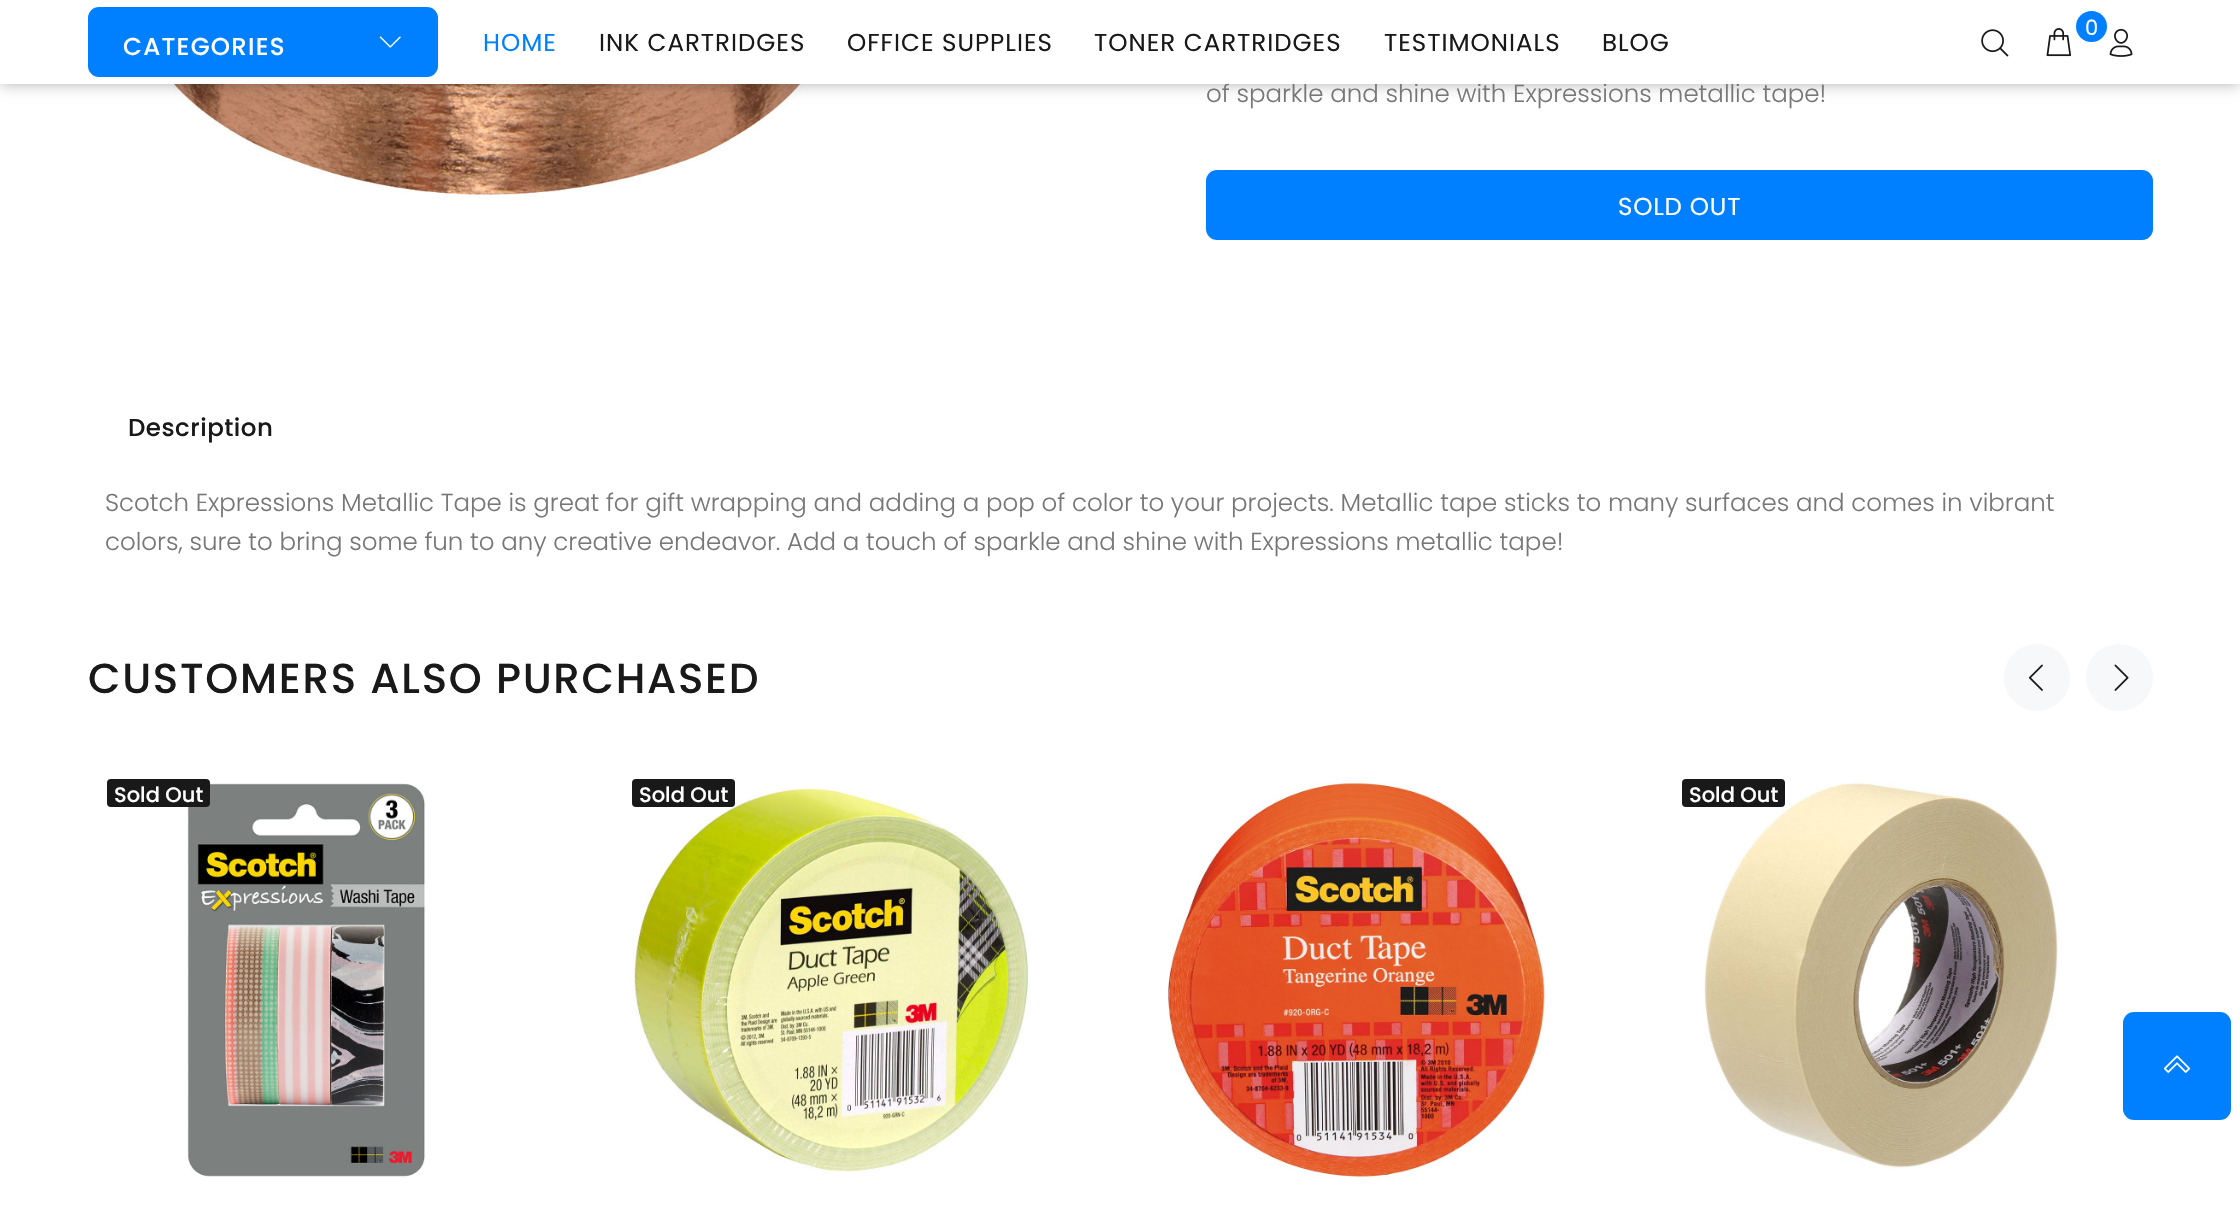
static SkFont makeFont(const char* family, int weight, float size, bool italic = false) {
  SkFontStyle style(weight, SkFontStyle::kNormal_Width,
    italic ? SkFontStyle::kItalic_Slant : SkFontStyle::kUpright_Slant);
  SkFont result(fontMgr->matchFamilyStyle(family, style), size);
  result.setSubpixel(true);
  return result;
}

static void text(SkCanvas* c, const char* s, float x, float y, const SkFont& font, SkColor color) {
  SkPaint ink(SkColor4f::FromColor(color));
  ink.setAntiAlias(true);
  c->drawString(s, x, y, font, ink);
}

static void spacedText(SkCanvas* c, const char* s, float x, float y, const SkFont& font, const SkPaint& ink, float letter, float word) {
  std::vector<SkGlyphID> glyphs(font.countText(s, strlen(s), SkTextEncoding::kUTF8));
  std::vector<float> xs(glyphs.size());
  font.textToGlyphs(s, strlen(s), SkTextEncoding::kUTF8, glyphs);
  font.getXPos(glyphs, xs, x);
  float extra = 0;
  for (size_t i = 0; i < glyphs.size(); i++) {
    xs[i] += extra;
    extra += letter + word * (glyphs[i] == font.unicharToGlyph(' '));
  }
  c->drawTextBlob(SkTextBlob::MakeFromPosHGlyphs(glyphs, xs, y, font), 0, 0, ink);
}

static void box(SkCanvas* c, float l, float t, float r, float b, SkColor color) {
  SkPaint ink(SkColor4f::FromColor(color));
  ink.setAntiAlias(true);
  c->drawRect(SkRect::MakeLTRB(l, t, r, b), ink);
}

static void roundBox(SkCanvas* c, float l, float t, float r, float b, float radius, SkColor color) {
  SkPaint ink(SkColor4f::FromColor(color));
  ink.setAntiAlias(true);
  c->drawRoundRect(SkRect::MakeLTRB(l, t, r, b), radius, radius, ink);
}

static void picture(SkCanvas* c, const char* path, float l, float t, float r, float b) {
  auto image = SkImages::DeferredFromEncodedData(SkData::MakeFromFileName(path));
  c->drawImageRect(image, SkRect::MakeLTRB(l, t, r, b), SkSamplingOptions());
}

void draw(SkCanvas* c) {
  SkPaint paint;
  paint.setAntiAlias(true);
  c->clear(0xffffffff);
  picture(c, "img_05.png", 138, 84, 832, 199);
  paint.setColor(0x4d000000);
  paint.setMaskFilter(SkMaskFilter::MakeBlur(kNormal_SkBlurStyle, 7));
  c->drawRect(SkRect::MakeLTRB(0, 0, 2240, 84), paint);
  paint.setMaskFilter(nullptr);
  SkFont face1 = makeFont("Poppins", 300, 24.5f);
  text(c, "of sparkle and shine with Expressions metallic tape!", 1206, 102, face1, 0xff777777);
  box(c, 0, 0, 2240, 84, 0xffffffff);
  roundBox(c, 88, 7, 438, 77, 11, 0xff0080ff);
  SkFont face2 = makeFont("Poppins", 500, 24.5f);
  paint.setColor(0xffffffff);
  spacedText(c, "CATEGORIES", 123, 55, face2, paint, 1.25f, 0);
  picture(c, "img_01.png", 379, 36, 401, 48);
  SkFont face3 = makeFont("Poppins", 400, 24.5f);
  paint.setColor(0xff0080ff);
  spacedText(c, "HOME", 483, 51, face3, paint, 1, 0);
  paint.setColor(0xff191919);
  spacedText(c, "INK CARTRIDGES", 599, 51, face3, paint, 1, 0);
  spacedText(c, "OFFICE SUPPLIES", 847, 51, face3, paint, 1, 0);
  spacedText(c, "TONER CARTRIDGES", 1094, 51, face3, paint, 1, 0);
  spacedText(c, "TESTIMONIALS", 1384, 51, face3, paint, 1, 0);
  spacedText(c, "BLOG", 1602, 51, face3, paint, 1, 0);
  picture(c, "img_02.png", 1981, 29, 2009, 57);
  picture(c, "img_03.png", 2046, 28, 2072, 57);
  paint.setColor(0xff0080ff);
  c->drawCircle(2091.5f, 26.5f, 15.5f, paint);
  SkFont face4 = makeFont("Poppins", 400, 21);
  text(c, "0", 2085, 35, face4, 0xffffffff);
  picture(c, "img_04.png", 2109, 28, 2133, 57);
  roundBox(c, 1206, 170, 2153, 240, 11, 0xff0080ff);
  paint.setColor(0xffffffff);
  spacedText(c, "SOLD OUT", 1618, 215, face3, paint, 0.75f, 0);
  paint.setColor(0xff191919);
  spacedText(c, "Description", 128, 436, face2, paint, 0.5f, 0);
  text(c, "Scotch Expressions Metallic Tape is great for gift wrapping and adding a pop of color to your projects. Metallic tape sticks to many surfaces and comes in vibrant", 105, 511, face1, 0xff777777);
  text(c, "colors, sure to bring some fun to any creative endeavor. Add a touch of sparkle and shine with Expressions metallic tape!", 105, 550, face1, 0xff777777);
  SkFont face5 = makeFont("Poppins", 500, 42);
  spacedText(c, "CUSTOMERS ALSO PURCHASED", 88, 693, face5, paint, 1.7f, 0);
  roundBox(c, 2004, 644, 2070, 711, 33, 0xfff7f8fa);
  picture(c, "img_06.png", 2028, 664, 2043, 691);
  paint.setColor(0xfff7f8fa);
  c->drawCircle(2119.5f, 677.5f, 33.5f, paint);
  picture(c, "img_07.png", 2114, 664, 2129, 691);
  picture(c, "img_08.png", 187, 783, 425, 1177);
  roundBox(c, 107, 779, 210, 807, 4, 0xff191919);
  SkFont face6 = makeFont("Poppins", 500, 21);
  text(c, "Sold Out", 114, 802, face6, 0xffffffff);
  picture(c, "img_09.png", 633, 788, 1029, 1172);
  roundBox(c, 632, 779, 735, 807, 4, 0xff191919);
  text(c, "Sold Out", 639, 802, face6, 0xffffffff);
  picture(c, "img_10.png", 1168, 782, 1547, 1178);
  picture(c, "img_11.png", 1703, 782, 2059, 1170);
  roundBox(c, 1682, 779, 1785, 807, 4, 0xff191919);
  text(c, "Sold Out", 1689, 802, face6, 0xffffffff);
  roundBox(c, 2123, 1012, 2231, 1120, 11, 0xff0080ff);
  picture(c, "img_12.png", 2163, 1055, 2191, 1073);
}
